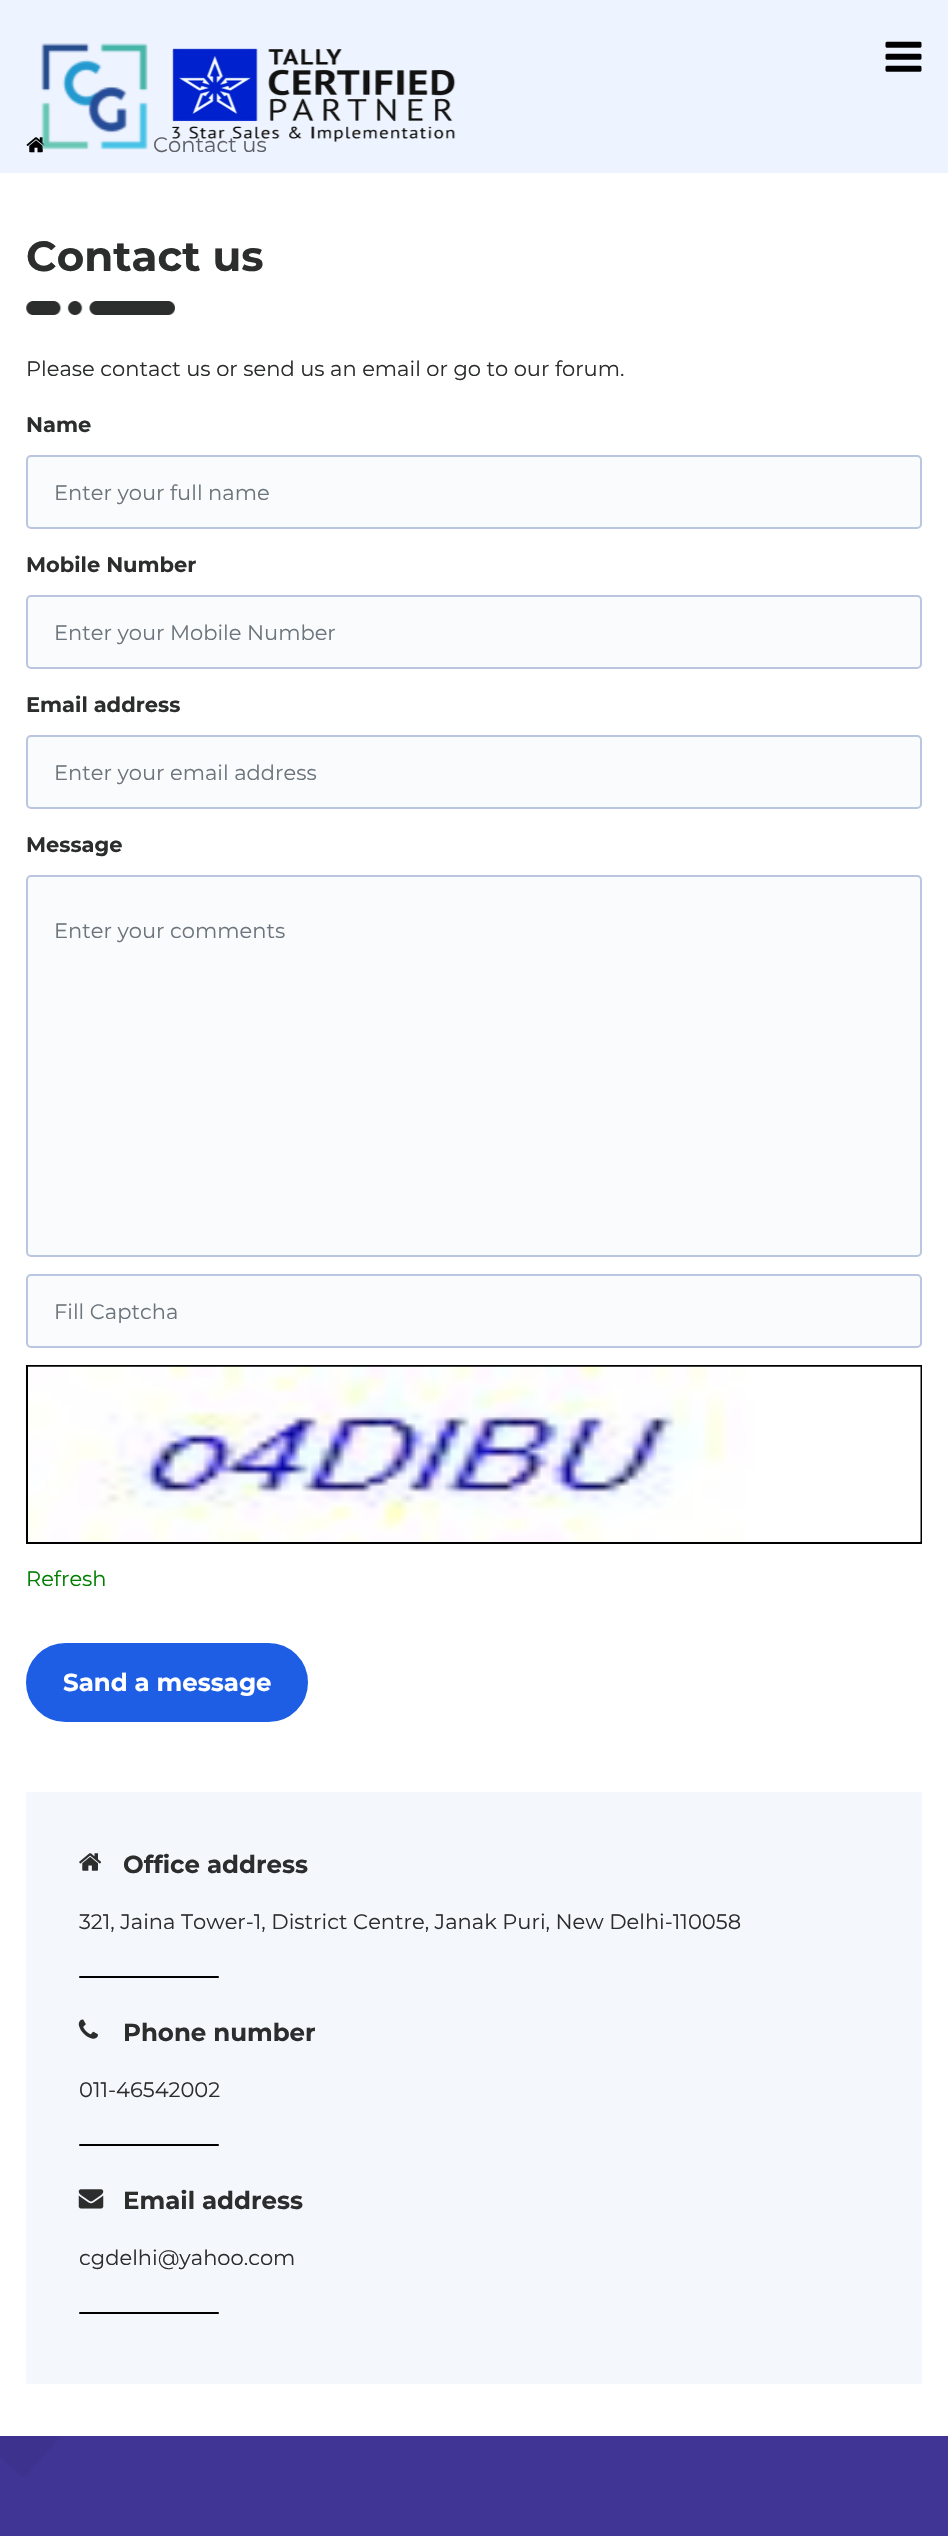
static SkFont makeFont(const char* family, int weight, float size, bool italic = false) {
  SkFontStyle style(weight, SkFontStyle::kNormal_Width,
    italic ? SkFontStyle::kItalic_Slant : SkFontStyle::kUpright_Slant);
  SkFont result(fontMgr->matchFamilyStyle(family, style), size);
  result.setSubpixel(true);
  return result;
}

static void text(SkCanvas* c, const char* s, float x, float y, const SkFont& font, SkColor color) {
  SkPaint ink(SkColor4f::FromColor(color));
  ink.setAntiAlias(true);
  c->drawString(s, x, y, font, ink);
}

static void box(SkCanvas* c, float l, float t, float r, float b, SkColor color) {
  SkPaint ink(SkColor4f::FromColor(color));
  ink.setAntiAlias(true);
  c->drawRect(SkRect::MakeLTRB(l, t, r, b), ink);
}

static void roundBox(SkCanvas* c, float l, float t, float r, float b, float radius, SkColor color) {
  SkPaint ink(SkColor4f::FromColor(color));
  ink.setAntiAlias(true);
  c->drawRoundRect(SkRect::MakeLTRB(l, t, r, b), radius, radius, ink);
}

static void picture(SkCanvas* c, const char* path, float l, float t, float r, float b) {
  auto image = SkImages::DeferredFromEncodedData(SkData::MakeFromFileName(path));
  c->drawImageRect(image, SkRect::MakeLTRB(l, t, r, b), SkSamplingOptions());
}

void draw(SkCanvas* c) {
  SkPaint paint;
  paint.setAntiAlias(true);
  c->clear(0xffffffff);
  box(c, 0, 0, 948, 173, 0xffedf3ff);
  picture(c, "img_04.png", 26, 137, 45, 153);
  picture(c, "img_01.png", 41, 43, 148, 150);
  SkFont face1 = makeFont("Montserrat", 400, 21);
  text(c, "Contact us", 153, 152, face1, 0xff5f6166);
  picture(c, "img_02.png", 171, 48, 456, 142);
  picture(c, "img_03.png", 885, 41, 922, 72);
  SkFont face2 = makeFont("Montserrat", 700, 42);
  text(c, "Contact us", 26, 271, face2, 0xff2c2d2d);
  picture(c, "img_05.png", 26, 301, 175, 315);
  text(c, "Please contact us or send us an email or go to our forum.", 26, 376, face1, 0xff2c2d2d);
  SkFont face3 = makeFont("Montserrat", 700, 21);
  text(c, "Name", 26, 432, face3, 0xff2c2d2d);
  paint.setColor(0xfffafbfc);
  c->drawRoundRect(SkRect::MakeLTRB(27, 456, 921, 528), 4, 4, paint);
  paint.setStyle(SkPaint::kStroke_Style);
  paint.setStrokeWidth(2);
  paint.setColor(0xffbac6e1);
  c->drawRoundRect(SkRect::MakeLTRB(27, 456, 921, 528), 4, 4, paint);
  text(c, "Enter your full name", 54, 500, face1, 0xff6c757d);
  text(c, "Mobile Number", 26, 572, face3, 0xff2c2d2d);
  paint.setStyle(SkPaint::kFill_Style);
  paint.setColor(0xfffafbfc);
  c->drawRoundRect(SkRect::MakeLTRB(27, 596, 921, 668), 4, 4, paint);
  paint.setStyle(SkPaint::kStroke_Style);
  paint.setColor(0xffbac6e1);
  c->drawRoundRect(SkRect::MakeLTRB(27, 596, 921, 668), 4, 4, paint);
  text(c, "Enter your Mobile Number", 54, 640, face1, 0xff6c757d);
  text(c, "Email address", 26, 712, face3, 0xff2c2d2d);
  paint.setStyle(SkPaint::kFill_Style);
  paint.setColor(0xfffafbfc);
  c->drawRoundRect(SkRect::MakeLTRB(27, 736, 921, 808), 4, 4, paint);
  paint.setStyle(SkPaint::kStroke_Style);
  paint.setColor(0xffbac6e1);
  c->drawRoundRect(SkRect::MakeLTRB(27, 736, 921, 808), 4, 4, paint);
  text(c, "Enter your email address", 54, 780, face1, 0xff6c757d);
  text(c, "Message", 26, 852, face3, 0xff2c2d2d);
  paint.setStyle(SkPaint::kFill_Style);
  paint.setColor(0xfffafbfc);
  c->drawRoundRect(SkRect::MakeLTRB(27, 876, 921, 1256), 4, 4, paint);
  paint.setStyle(SkPaint::kStroke_Style);
  paint.setColor(0xffbac6e1);
  c->drawRoundRect(SkRect::MakeLTRB(27, 876, 921, 1256), 4, 4, paint);
  text(c, "Enter your comments", 54, 938, face1, 0xff6c757d);
  paint.setStyle(SkPaint::kFill_Style);
  paint.setColor(0xfffafbfc);
  c->drawRoundRect(SkRect::MakeLTRB(27, 1275, 921, 1347), 4, 4, paint);
  paint.setStyle(SkPaint::kStroke_Style);
  paint.setColor(0xffbac6e1);
  c->drawRoundRect(SkRect::MakeLTRB(27, 1275, 921, 1347), 4, 4, paint);
  text(c, "Fill Captcha", 54, 1319, face1, 0xff6c757d);
  paint.setColor(0xff000000);
  c->drawRect(SkRect::MakeLTRB(27, 1366, 921, 1543), paint);
  picture(c, "img_06.png", 28, 1366, 921, 1542);
  text(c, "Refresh", 26, 1586, face1, 0xff008000);
  paint.setStyle(SkPaint::kFill_Style);
  paint.setColor(0xff1e5ee5);
  c->drawRoundRect(SkRect::MakeLTRB(27, 1644, 307, 1721), 38.5f, 38.5f, paint);
  paint.setStyle(SkPaint::kStroke_Style);
  c->drawRoundRect(SkRect::MakeLTRB(27, 1644, 307, 1721), 38.5f, 38.5f, paint);
  SkFont face4 = makeFont("Montserrat", 700, 24.5f);
  text(c, "Sand a message", 63, 1691, face4, 0xffffffff);
  box(c, 26, 1792, 922, 2384, 0xfff4f7fc);
  picture(c, "img_07.png", 79, 1853, 102, 1871);
  text(c, "Office address", 123, 1873, face4, 0xff2c2d2d);
  text(c, "321, Jaina Tower-1, District Centre, Janak Puri, New Delhi-110058", 79, 1929, face1, 0xff2c2d2d);
  roundBox(c, 79, 1976, 219, 1978, 1, 0xff000000);
  picture(c, "img_08.png", 78, 2019, 98, 2039);
  text(c, "Phone number", 123, 2041, face4, 0xff2c2d2d);
  text(c, "011-46542002", 79, 2097, face1, 0xff2c2d2d);
  roundBox(c, 79, 2144, 219, 2146, 1, 0xff000000);
  picture(c, "img_09.png", 78, 2189, 104, 2209);
  text(c, "Email address", 123, 2209, face4, 0xff2c2d2d);
  text(c, "cgdelhi@yahoo.com", 79, 2265, face1, 0xff2c2d2d);
  roundBox(c, 79, 2312, 219, 2314, 1, 0xff000000);
  box(c, 0, 2436, 948, 2536, 0xff403595);
  picture(c, "img_10.png", 0, 2436, 61, 2478);
}
